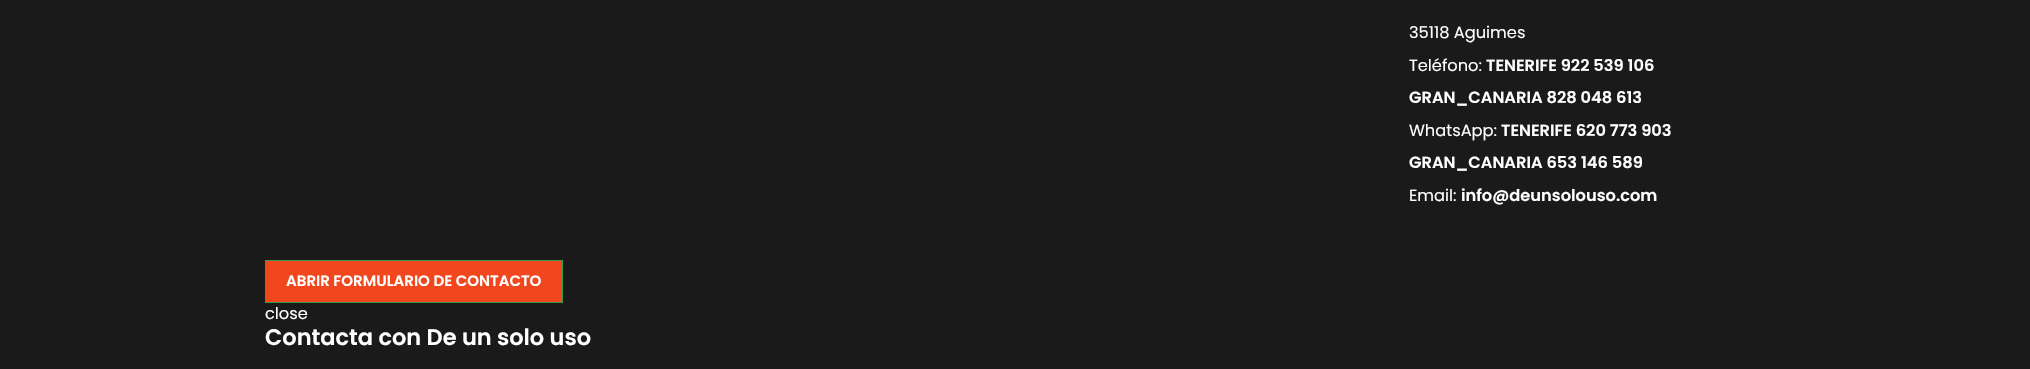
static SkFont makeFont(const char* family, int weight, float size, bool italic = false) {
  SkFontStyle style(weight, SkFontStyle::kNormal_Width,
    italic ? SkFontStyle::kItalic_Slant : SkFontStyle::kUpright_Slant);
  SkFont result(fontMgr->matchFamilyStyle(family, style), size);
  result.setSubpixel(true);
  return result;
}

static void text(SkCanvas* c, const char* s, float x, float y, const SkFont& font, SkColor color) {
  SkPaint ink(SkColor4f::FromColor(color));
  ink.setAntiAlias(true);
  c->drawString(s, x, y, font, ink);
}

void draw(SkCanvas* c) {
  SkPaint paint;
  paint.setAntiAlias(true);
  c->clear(0xff1b1a1b);
  SkFont face1 = makeFont("Poppins", 400, 16.25f);
  text(c, "35118 Aguimes", 1409, 38, face1, 0xffffffff);
  text(c, "Teléfono:", 1409, 71, face1, 0xffffffff);
  SkFont face2 = makeFont("Poppins", 600, 16.25f);
  text(c, "TENERIFE 922 539 106", 1486, 71, face2, 0xffffffff);
  text(c, "GRAN_CANARIA 828 048 613", 1409, 103, face2, 0xffffffff);
  text(c, "WhatsApp:", 1409, 136, face1, 0xffffffff);
  text(c, "TENERIFE 620 773 903", 1501, 136, face2, 0xffffffff);
  text(c, "GRAN_CANARIA 653 146 589", 1409, 168, face2, 0xffffffff);
  text(c, "Email:", 1409, 201, face1, 0xffffffff);
  text(c, "info@deunsolouso.com", 1461, 201, face2, 0xffffffff);
  paint.setColor(0xfff1461e);
  c->drawRect(SkRect::MakeLTRB(265.5f, 260.5f, 562.5f, 302.5f), paint);
  paint.setStyle(SkPaint::kStroke_Style);
  paint.setStrokeWidth(1);
  paint.setColor(0xff399a49);
  c->drawRect(SkRect::MakeLTRB(265.5f, 260.5f, 562.5f, 302.5f), paint);
  SkFont face3 = makeFont("Poppins", 600, 15);
  text(c, "ABRIR FORMULARIO DE CONTACTO", 286, 286, face3, 0xffffffff);
  text(c, "close", 265, 319, face1, 0xffffffff);
  SkFont face4 = makeFont("Poppins", 600, 22.5f);
  text(c, "Contacta con De un solo uso", 265, 345, face4, 0xffffffff);
}
